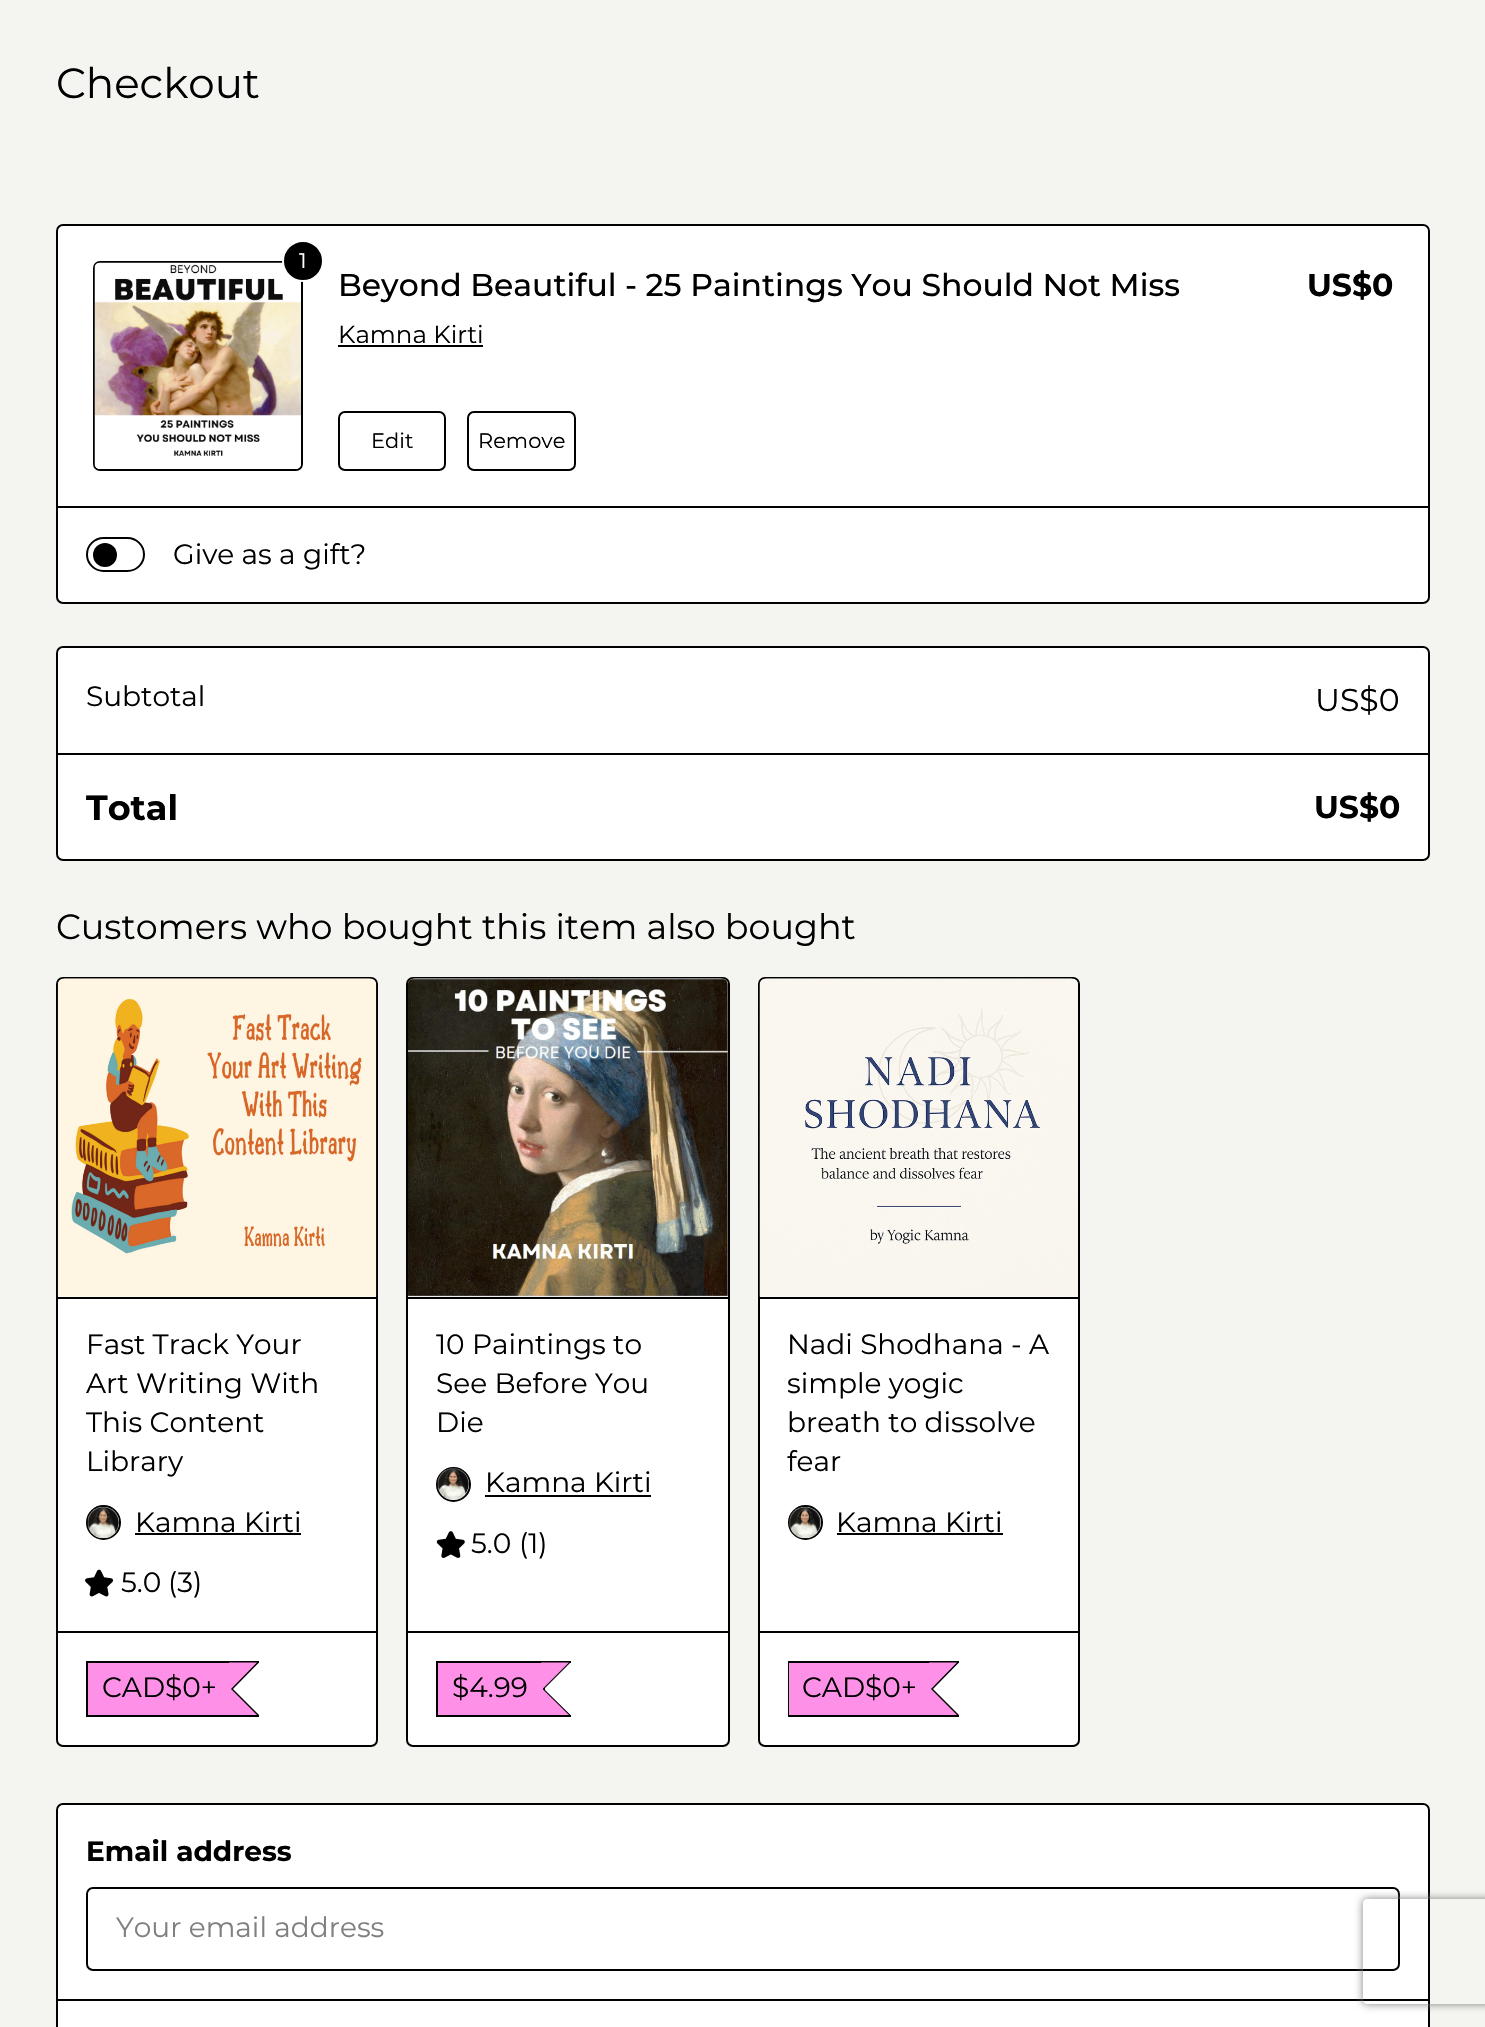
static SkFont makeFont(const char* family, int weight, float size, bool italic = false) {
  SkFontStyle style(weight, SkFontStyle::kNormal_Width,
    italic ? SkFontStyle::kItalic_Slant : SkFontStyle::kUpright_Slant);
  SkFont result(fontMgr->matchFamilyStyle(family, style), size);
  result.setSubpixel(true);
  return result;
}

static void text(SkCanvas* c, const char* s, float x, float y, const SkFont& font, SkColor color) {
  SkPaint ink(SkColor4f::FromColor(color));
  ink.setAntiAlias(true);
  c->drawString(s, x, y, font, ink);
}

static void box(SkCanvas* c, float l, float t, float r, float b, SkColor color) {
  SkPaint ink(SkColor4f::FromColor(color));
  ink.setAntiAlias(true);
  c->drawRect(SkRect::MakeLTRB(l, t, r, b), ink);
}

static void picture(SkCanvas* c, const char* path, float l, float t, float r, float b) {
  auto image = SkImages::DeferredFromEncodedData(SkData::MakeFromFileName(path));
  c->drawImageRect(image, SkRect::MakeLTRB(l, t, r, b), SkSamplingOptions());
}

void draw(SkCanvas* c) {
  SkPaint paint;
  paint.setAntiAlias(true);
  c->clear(0xfff4f4f0);
  SkFont face1 = makeFont("Montserrat", 400, 42);
  text(c, "Checkout", 56, 98, face1, 0xff000000);
  paint.setColor(0xffffffff);
  c->drawRoundRect(SkRect::MakeLTRB(57, 225, 1429, 603), 6, 6, paint);
  paint.setStyle(SkPaint::kStroke_Style);
  paint.setStrokeWidth(2);
  paint.setColor(0xff000000);
  c->drawRoundRect(SkRect::MakeLTRB(57, 225, 1429, 603), 6, 6, paint);
  c->drawRoundRect(SkRect::MakeLTRB(94, 262, 302, 470), 6, 6, paint);
  picture(c, "img_01.png", 94, 262, 301, 469);
  paint.setStyle(SkPaint::kFill_Style);
  c->drawCircle(303, 261, 20, paint);
  paint.setStyle(SkPaint::kStroke_Style);
  paint.setColor(0xffffffff);
  c->drawCircle(303, 261, 20, paint);
  SkFont face2 = makeFont("Montserrat", 400, 21);
  text(c, "1", 299, 268, face2, 0xffffffff);
  SkFont face3 = makeFont("Montserrat", 500, 31.5f);
  text(c, "Beyond Beautiful - 25 Paintings You Should Not Miss", 338, 296, face3, 0xff000000);
  SkFont face4 = makeFont("Montserrat", 400, 24.5f);
  text(c, "Kamna Kirti", 338, 343, face4, 0xff000000);
  box(c, 338, 345, 483, 347, 0xff000000);
  paint.setColor(0xff000000);
  c->drawRoundRect(SkRect::MakeLTRB(339, 412, 445, 470), 6, 6, paint);
  text(c, "Edit", 371, 448, face2, 0xff000000);
  c->drawRoundRect(SkRect::MakeLTRB(468, 412, 575, 470), 6, 6, paint);
  text(c, "Remove", 478, 448, face2, 0xff000000);
  SkFont face5 = makeFont("Montserrat", 700, 31.5f);
  text(c, "US$0", 1307, 296, face5, 0xff000000);
  box(c, 58, 506, 1428, 508, 0xff000000);
  c->drawRoundRect(SkRect::MakeLTRB(87, 538, 144, 571), 16.5f, 16.5f, paint);
  paint.setStyle(SkPaint::kFill_Style);
  c->drawCircle(105, 555, 12, paint);
  SkFont face6 = makeFont("Montserrat", 400, 28);
  text(c, "Give as a gift?", 173, 564, face6, 0xff000000);
  paint.setColor(0xffffffff);
  c->drawRoundRect(SkRect::MakeLTRB(57, 647, 1429, 860), 6, 6, paint);
  paint.setStyle(SkPaint::kStroke_Style);
  paint.setColor(0xff000000);
  c->drawRoundRect(SkRect::MakeLTRB(57, 647, 1429, 860), 6, 6, paint);
  text(c, "Subtotal", 86, 706, face6, 0xff000000);
  SkFont face7 = makeFont("Montserrat", 400, 31.5f);
  text(c, "US$0", 1315, 711, face7, 0xff000000);
  box(c, 58, 753, 1428, 755, 0xff000000);
  SkFont face8 = makeFont("Montserrat", 700, 35);
  text(c, "Total", 86, 820, face8, 0xff000000);
  text(c, "US$0", 1314, 818, face5, 0xff000000);
  SkFont face9 = makeFont("Montserrat", 400, 35);
  text(c, "Customers who bought this item also bought", 56, 939, face9, 0xff000000);
  paint.setStyle(SkPaint::kFill_Style);
  paint.setColor(0xffffffff);
  c->drawRoundRect(SkRect::MakeLTRB(57, 978, 377, 1746), 6, 6, paint);
  paint.setStyle(SkPaint::kStroke_Style);
  paint.setColor(0xff000000);
  c->drawRoundRect(SkRect::MakeLTRB(57, 978, 377, 1746), 6, 6, paint);
  box(c, 58, 1297, 376, 1299, 0xff000000);
  picture(c, "img_02.png", 57, 978, 377, 1297);
  box(c, 58, 1631, 376, 1633, 0xff000000);
  text(c, "Fast Track Your", 86, 1354, face6, 0xff000000);
  text(c, "Art Writing With", 86, 1393, face6, 0xff000000);
  text(c, "This Content", 86, 1432, face6, 0xff000000);
  text(c, "Library", 86, 1471, face6, 0xff000000);
  c->drawCircle(103.5f, 1522.5f, 16.5f, paint);
  picture(c, "img_03.png", 87, 1506, 119, 1539);
  text(c, "Kamna Kirti", 135, 1532, face6, 0xff000000);
  box(c, 135, 1533, 301, 1535, 0xff000000);
  picture(c, "img_04.png", 85, 1569, 113, 1597);
  text(c, "5.0", 121, 1592, face6, 0xff000000);
  text(c, "(3)", 168, 1592, face6, 0xff000000);
  box(c, 86, 1661, 259, 1663, 0xff000000);
  box(c, 86, 1715, 259, 1717, 0xff000000);
  box(c, 86, 1661, 88, 1717, 0xff000000);
  box(c, 88, 1663, 231, 1715, 0xffff90e8);
  paint.setStyle(SkPaint::kFill_Style);
  c->drawPath(SkPathBuilder().moveTo(231, 1662.5f).lineTo(259, 1662.5f).lineTo(233, 1689).close().moveTo(259, 1715).lineTo(231, 1715).lineTo(233, 1689).close().detach(), paint);
  box(c, 231, 1687, 233, 1691, 0xff000000);
  paint.setColor(0xffff90e8);
  c->drawPath(SkPathBuilder().moveTo(229, 1662.5f).lineTo(257, 1662.5f).lineTo(231, 1689).close().moveTo(257, 1715).lineTo(229, 1715).lineTo(231, 1689).close().detach(), paint);
  text(c, "CAD$0+", 102, 1697, face6, 0xff000000);
  paint.setColor(0xffffffff);
  c->drawRoundRect(SkRect::MakeLTRB(407, 978, 729, 1746), 6, 6, paint);
  paint.setStyle(SkPaint::kStroke_Style);
  paint.setColor(0xff000000);
  c->drawRoundRect(SkRect::MakeLTRB(407, 978, 729, 1746), 6, 6, paint);
  box(c, 408, 1297, 728, 1299, 0xff000000);
  picture(c, "img_05.png", 407, 978, 728, 1297);
  box(c, 408, 1631, 728, 1633, 0xff000000);
  text(c, "10 Paintings to", 436, 1354, face6, 0xff000000);
  text(c, "See Before You", 436, 1393, face6, 0xff000000);
  text(c, "Die", 436, 1432, face6, 0xff000000);
  c->drawCircle(453.5f, 1484.5f, 16.5f, paint);
  picture(c, "img_06.png", 437, 1468, 469, 1500);
  text(c, "Kamna Kirti", 485, 1492, face6, 0xff000000);
  box(c, 485, 1495, 651, 1497, 0xff000000);
  picture(c, "img_07.png", 436, 1531, 465, 1558);
  text(c, "5.0", 471, 1553, face6, 0xff000000);
  text(c, "(1)", 519, 1553, face6, 0xff000000);
  box(c, 436, 1661, 571, 1663, 0xff000000);
  box(c, 436, 1715, 571, 1717, 0xff000000);
  box(c, 436, 1661, 438, 1717, 0xff000000);
  box(c, 438, 1663, 543, 1715, 0xffff90e8);
  paint.setStyle(SkPaint::kFill_Style);
  c->drawPath(SkPathBuilder().moveTo(542.5f, 1662.5f).lineTo(570.5f, 1662.5f).lineTo(544, 1689).close().moveTo(570.5f, 1715).lineTo(542.5f, 1715).lineTo(544, 1689).close().detach(), paint);
  box(c, 543, 1686, 545, 1692, 0xff000000);
  paint.setColor(0xffff90e8);
  c->drawPath(SkPathBuilder().moveTo(541, 1662.5f).lineTo(569, 1662.5f).lineTo(542.5f, 1689).close().moveTo(569, 1715).lineTo(541, 1715).lineTo(542.5f, 1689).close().detach(), paint);
  text(c, "$4.99", 452, 1697, face6, 0xff000000);
  paint.setColor(0xffffffff);
  c->drawRoundRect(SkRect::MakeLTRB(759, 978, 1079, 1746), 6, 6, paint);
  paint.setStyle(SkPaint::kStroke_Style);
  paint.setColor(0xff000000);
  c->drawRoundRect(SkRect::MakeLTRB(759, 978, 1079, 1746), 6, 6, paint);
  box(c, 760, 1297, 1078, 1299, 0xff000000);
  picture(c, "img_08.png", 759, 978, 1078, 1297);
  box(c, 760, 1631, 1078, 1633, 0xff000000);
  text(c, "Nadi Shodhana - A", 787, 1354, face6, 0xff000000);
  c->save();
  c->clipRect(SkRect::MakeLTRB(788, 1327, 1050, 1482));
  text(c, "simple yogic", 787, 1393, face6, 0xff000000);
  c->restore();
  text(c, "breath to dissolve", 787, 1432, face6, 0xff000000);
  text(c, "fear", 787, 1471, face6, 0xff000000);
  c->drawCircle(805.5f, 1522.5f, 16.5f, paint);
  picture(c, "img_09.png", 789, 1506, 821, 1539);
  text(c, "Kamna Kirti", 836, 1532, face6, 0xff000000);
  box(c, 837, 1533, 1003, 1535, 0xff000000);
  box(c, 788, 1661, 959, 1663, 0xff000000);
  box(c, 788, 1715, 959, 1717, 0xff000000);
  box(c, 788, 1661, 790, 1717, 0xff000000);
  box(c, 789, 1663, 931, 1715, 0xffff90e8);
  paint.setStyle(SkPaint::kFill_Style);
  c->drawPath(SkPathBuilder().moveTo(931, 1662.5f).lineTo(959, 1662.5f).lineTo(933, 1689).close().moveTo(959, 1715).lineTo(931, 1715).lineTo(933, 1689).close().detach(), paint);
  box(c, 931, 1687, 933, 1691, 0xff000000);
  paint.setColor(0xffff90e8);
  c->drawPath(SkPathBuilder().moveTo(929, 1662.5f).lineTo(957, 1662.5f).lineTo(931, 1689).close().moveTo(957, 1715).lineTo(929, 1715).lineTo(931, 1689).close().detach(), paint);
  text(c, "CAD$0+", 802, 1697, face6, 0xff000000);
  paint.setColor(0xffffffff);
  c->drawPath(SkPathBuilder().moveTo(63, 1803).lineTo(1423, 1803).cubicTo(1427, 1803, 1430, 1806, 1430, 1810).lineTo(1430, 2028).lineTo(56, 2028).lineTo(56, 1810).cubicTo(56, 1806, 59, 1803, 63, 1803).close().detach(), paint);
  paint.setStyle(SkPaint::kStroke_Style);
  paint.setColor(0xff000000);
  c->drawRoundRect(SkRect::MakeLTRB(57, 1804, 1429, 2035), 6, 6, paint);
  SkFont face10 = makeFont("Montserrat", 700, 28);
  text(c, "Email address", 86, 1861, face10, 0xff000000);
  c->drawRoundRect(SkRect::MakeLTRB(87, 1888, 1399, 1970), 6, 6, paint);
  text(c, "Your email address", 116, 1937, face6, 0xff808080);
  box(c, 58, 1999, 1428, 2001, 0xff000000);
  c->save();
  c->clipPath(SkPathBuilder(SkPathFillType::kEvenOdd).moveTo(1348, 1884).lineTo(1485, 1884).lineTo(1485, 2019).lineTo(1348, 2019).close().moveTo(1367, 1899).lineTo(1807, 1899).cubicTo(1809, 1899, 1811, 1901, 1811, 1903).lineTo(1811, 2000).cubicTo(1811, 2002, 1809, 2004, 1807, 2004).lineTo(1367, 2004).cubicTo(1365, 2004, 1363, 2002, 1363, 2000).lineTo(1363, 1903).cubicTo(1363, 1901, 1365, 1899, 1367, 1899).close().detach(), true);
  paint.setStyle(SkPaint::kFill_Style);
  paint.setColor(0xff808080);
  paint.setMaskFilter(SkMaskFilter::MakeBlur(kNormal_SkBlurStyle, 4.5f));
  c->drawRoundRect(SkRect::MakeLTRB(1363, 1899, 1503, 2004), 4, 4, paint);
  paint.setMaskFilter(nullptr);
  c->restore();
}
